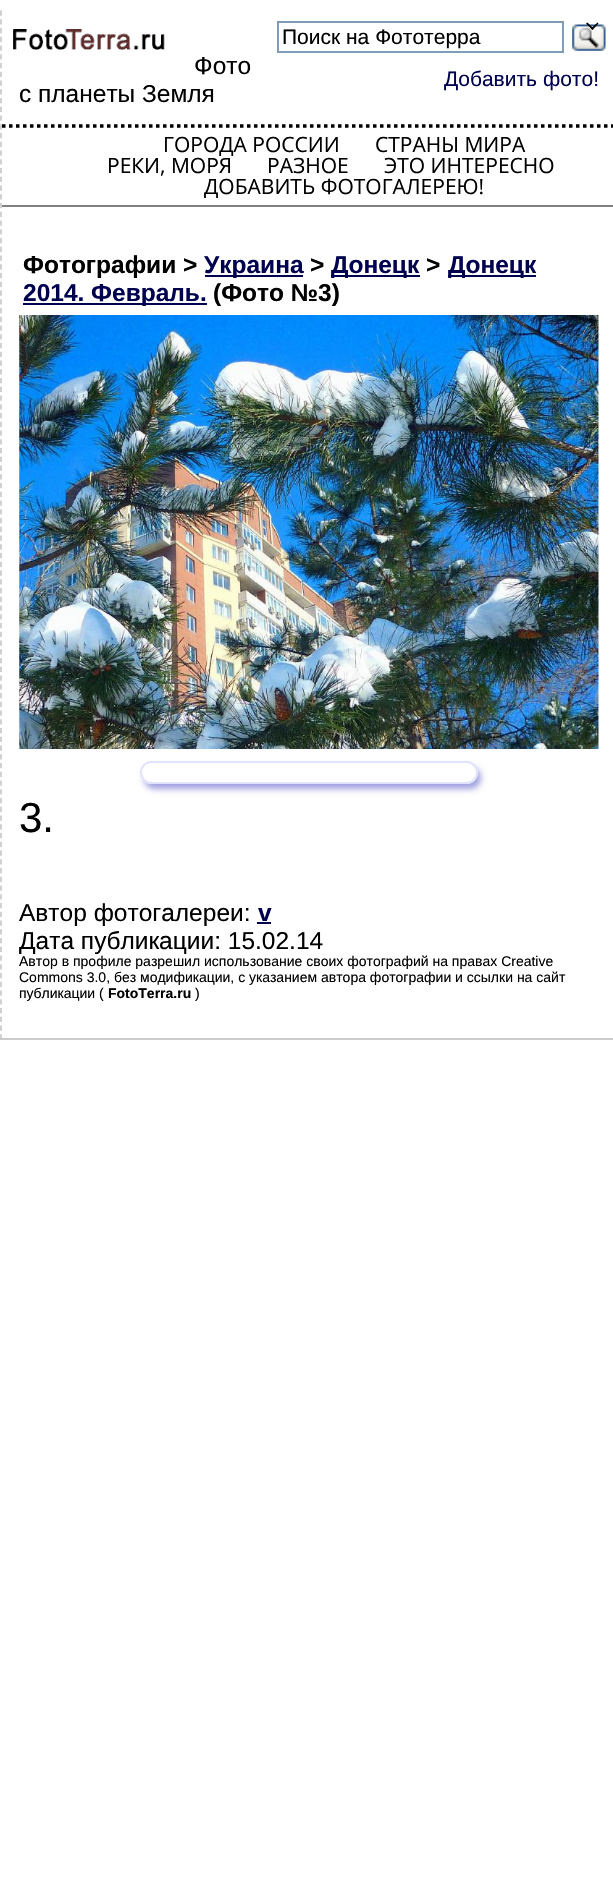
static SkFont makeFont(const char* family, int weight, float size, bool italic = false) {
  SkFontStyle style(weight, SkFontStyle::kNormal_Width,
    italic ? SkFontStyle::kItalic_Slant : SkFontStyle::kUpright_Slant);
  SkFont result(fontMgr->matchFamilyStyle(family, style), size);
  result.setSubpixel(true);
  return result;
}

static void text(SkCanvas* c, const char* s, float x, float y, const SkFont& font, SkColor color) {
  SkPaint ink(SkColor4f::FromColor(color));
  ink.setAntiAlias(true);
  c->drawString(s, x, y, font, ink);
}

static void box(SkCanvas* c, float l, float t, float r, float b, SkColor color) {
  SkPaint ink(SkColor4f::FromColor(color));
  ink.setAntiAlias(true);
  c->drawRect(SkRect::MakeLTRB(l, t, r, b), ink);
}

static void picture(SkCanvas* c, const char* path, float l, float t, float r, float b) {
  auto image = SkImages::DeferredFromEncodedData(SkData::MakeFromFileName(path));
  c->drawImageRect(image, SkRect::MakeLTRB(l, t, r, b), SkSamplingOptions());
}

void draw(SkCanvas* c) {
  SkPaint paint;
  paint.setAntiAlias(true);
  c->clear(0xffffffff);
  box(c, 0, 1038, 613, 1040, 0xffcccccc);
  paint.setStyle(SkPaint::kStroke_Style);
  paint.setStrokeWidth(1.8f);
  paint.setColor(0xffcccccc);
  paint.setPathEffect(SkDashPathEffect::Make({{5.25f, 3.5f}}, 0));
  c->drawPath(SkPathBuilder().moveTo(1, 10.5f).lineTo(1, 1039.5f).detach(), paint);
  paint.setPathEffect(nullptr);
  picture(c, "img_01.png", 13, 29, 165, 50);
  SkFont face1 = makeFont("Liberation Sans", 400, 24.5f);
  text(c, "Фото", 194, 74, face1, 0xff000000);
  text(c, "с планеты Земля", 19, 102, face1, 0xff000000);
  paint.setStrokeWidth(2);
  paint.setColor(0xff7f9db9);
  c->drawRect(SkRect::MakeLTRB(278, 22, 563, 52), paint);
  SkFont face2 = makeFont("Liberation Sans", 400, 21);
  text(c, "Поиск на Фототерра", 282, 44, face2, 0xff000000);
  picture(c, "img_02.png", 572, 24, 606, 51);
  text(c, "Добавить фото!", 444, 86, face2, 0xff000250);
  paint.setStrokeWidth(3.5f);
  paint.setColor(0xff000000);
  paint.setPathEffect(SkDashPathEffect::Make({{3.5f, 3.5f}}, 0));
  c->drawPath(SkPathBuilder().moveTo(2, 126).lineTo(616, 126).detach(), paint);
  paint.setPathEffect(nullptr);
  box(c, 2, 205, 613, 207, 0xff808080);
  SkFont face3 = makeFont("Open Sans", 400, 21);
  text(c, "ГОРОДА РОССИИ", 163, 152, face3, 0xff000000);
  text(c, "СТРАНЫ МИРА", 375, 152, face3, 0xff000000);
  text(c, "РЕКИ, МОРЯ", 107, 173, face3, 0xff000000);
  text(c, "РАЗНОЕ", 267, 173, face3, 0xff000000);
  paint.setStyle(SkPaint::kFill_Style);
  c->drawPath(SkPathBuilder().moveTo(597.5f, 22.5f).lineTo(598.5f, 23.5f).lineTo(592.5f, 30).lineTo(591, 28.5f).close().detach(), paint);
  c->drawPath(SkPathBuilder().moveTo(587.5f, 22.5f).lineTo(593.5f, 28.5f).lineTo(592.5f, 30).lineTo(586, 23.5f).close().detach(), paint);
  text(c, "ЭТО ИНТЕРЕСНО", 384, 173, face3, 0xff000000);
  text(c, "ДОБАВИТЬ ФОТОГАЛЕРЕЮ!", 204, 194, face3, 0xff000000);
  SkFont face4 = makeFont("Liberation Sans", 700, 24.5f);
  text(c, "Фотографии >", 23, 273, face4, 0xff000000);
  box(c, 205, 275, 303, 277, 0xff000250);
  text(c, "Украина", 204, 273, face4, 0xff000250);
  text(c, ">", 310, 273, face4, 0xff000000);
  box(c, 331, 275, 420, 277, 0xff000250);
  text(c, "Донецк", 331, 273, face4, 0xff000250);
  text(c, ">", 426, 273, face4, 0xff000000);
  box(c, 448, 275, 536, 277, 0xff000250);
  text(c, "Донецк", 448, 273, face4, 0xff000250);
  box(c, 23, 303, 207, 305, 0xff000250);
  text(c, "2014. Февраль.", 23, 301, face4, 0xff000250);
  text(c, "(Фото №3)", 213, 301, face4, 0xff000000);
  picture(c, "img_03.png", 19, 315, 599, 749);
  c->save();
  c->clipPath(SkPathBuilder(SkPathFillType::kEvenOdd).moveTo(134, 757).lineTo(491, 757).lineTo(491, 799).lineTo(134, 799).close().moveTo(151.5f, 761).lineTo(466.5f, 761).cubicTo(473, 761, 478, 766, 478, 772.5f).cubicTo(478, 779, 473, 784, 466.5f, 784).lineTo(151.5f, 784).cubicTo(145, 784, 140, 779, 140, 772.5f).cubicTo(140, 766, 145, 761, 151.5f, 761).close().detach(), true);
  paint.setColor(0xffa0a0e0);
  paint.setMaskFilter(SkMaskFilter::MakeBlur(kNormal_SkBlurStyle, 3));
  c->drawRoundRect(SkRect::MakeLTRB(144, 767, 481, 789), 11, 11, paint);
  paint.setMaskFilter(nullptr);
  c->restore();
  paint.setStyle(SkPaint::kStroke_Style);
  paint.setStrokeWidth(2);
  paint.setColor(0xffe1e2fe);
  c->drawRoundRect(SkRect::MakeLTRB(141, 762, 477, 783), 10.5f, 10.5f, paint);
  SkFont face5 = makeFont("Liberation Sans", 400, 42);
  text(c, "3.", 19, 832, face5, 0xff000000);
  text(c, "Автор фотогалереи:", 19, 921, face1, 0xff000000);
  text(c, "v", 258, 921, face4, 0xff000250);
  box(c, 257, 922, 271, 924, 0xff000250);
  text(c, "Дата публикации: 15.02.14", 19, 949, face1, 0xff000000);
  SkFont face6 = makeFont("Liberation Sans", 400, 14);
  text(c, "Автор в профиле разрешил использование своих фотографий на правах Creative", 19, 966, face6, 0xff000000);
  text(c, "Commons 3.0, без модификации, с указанием автора фотографии и ссылки на сайт", 19, 982, face6, 0xff000000);
  text(c, "публикации (", 19, 998, face6, 0xff000000);
  SkFont face7 = makeFont("Liberation Sans", 700, 14);
  text(c, "FotoTerra.ru", 108, 998, face7, 0xff000000);
  text(c, ")", 195, 998, face6, 0xff000000);
}
